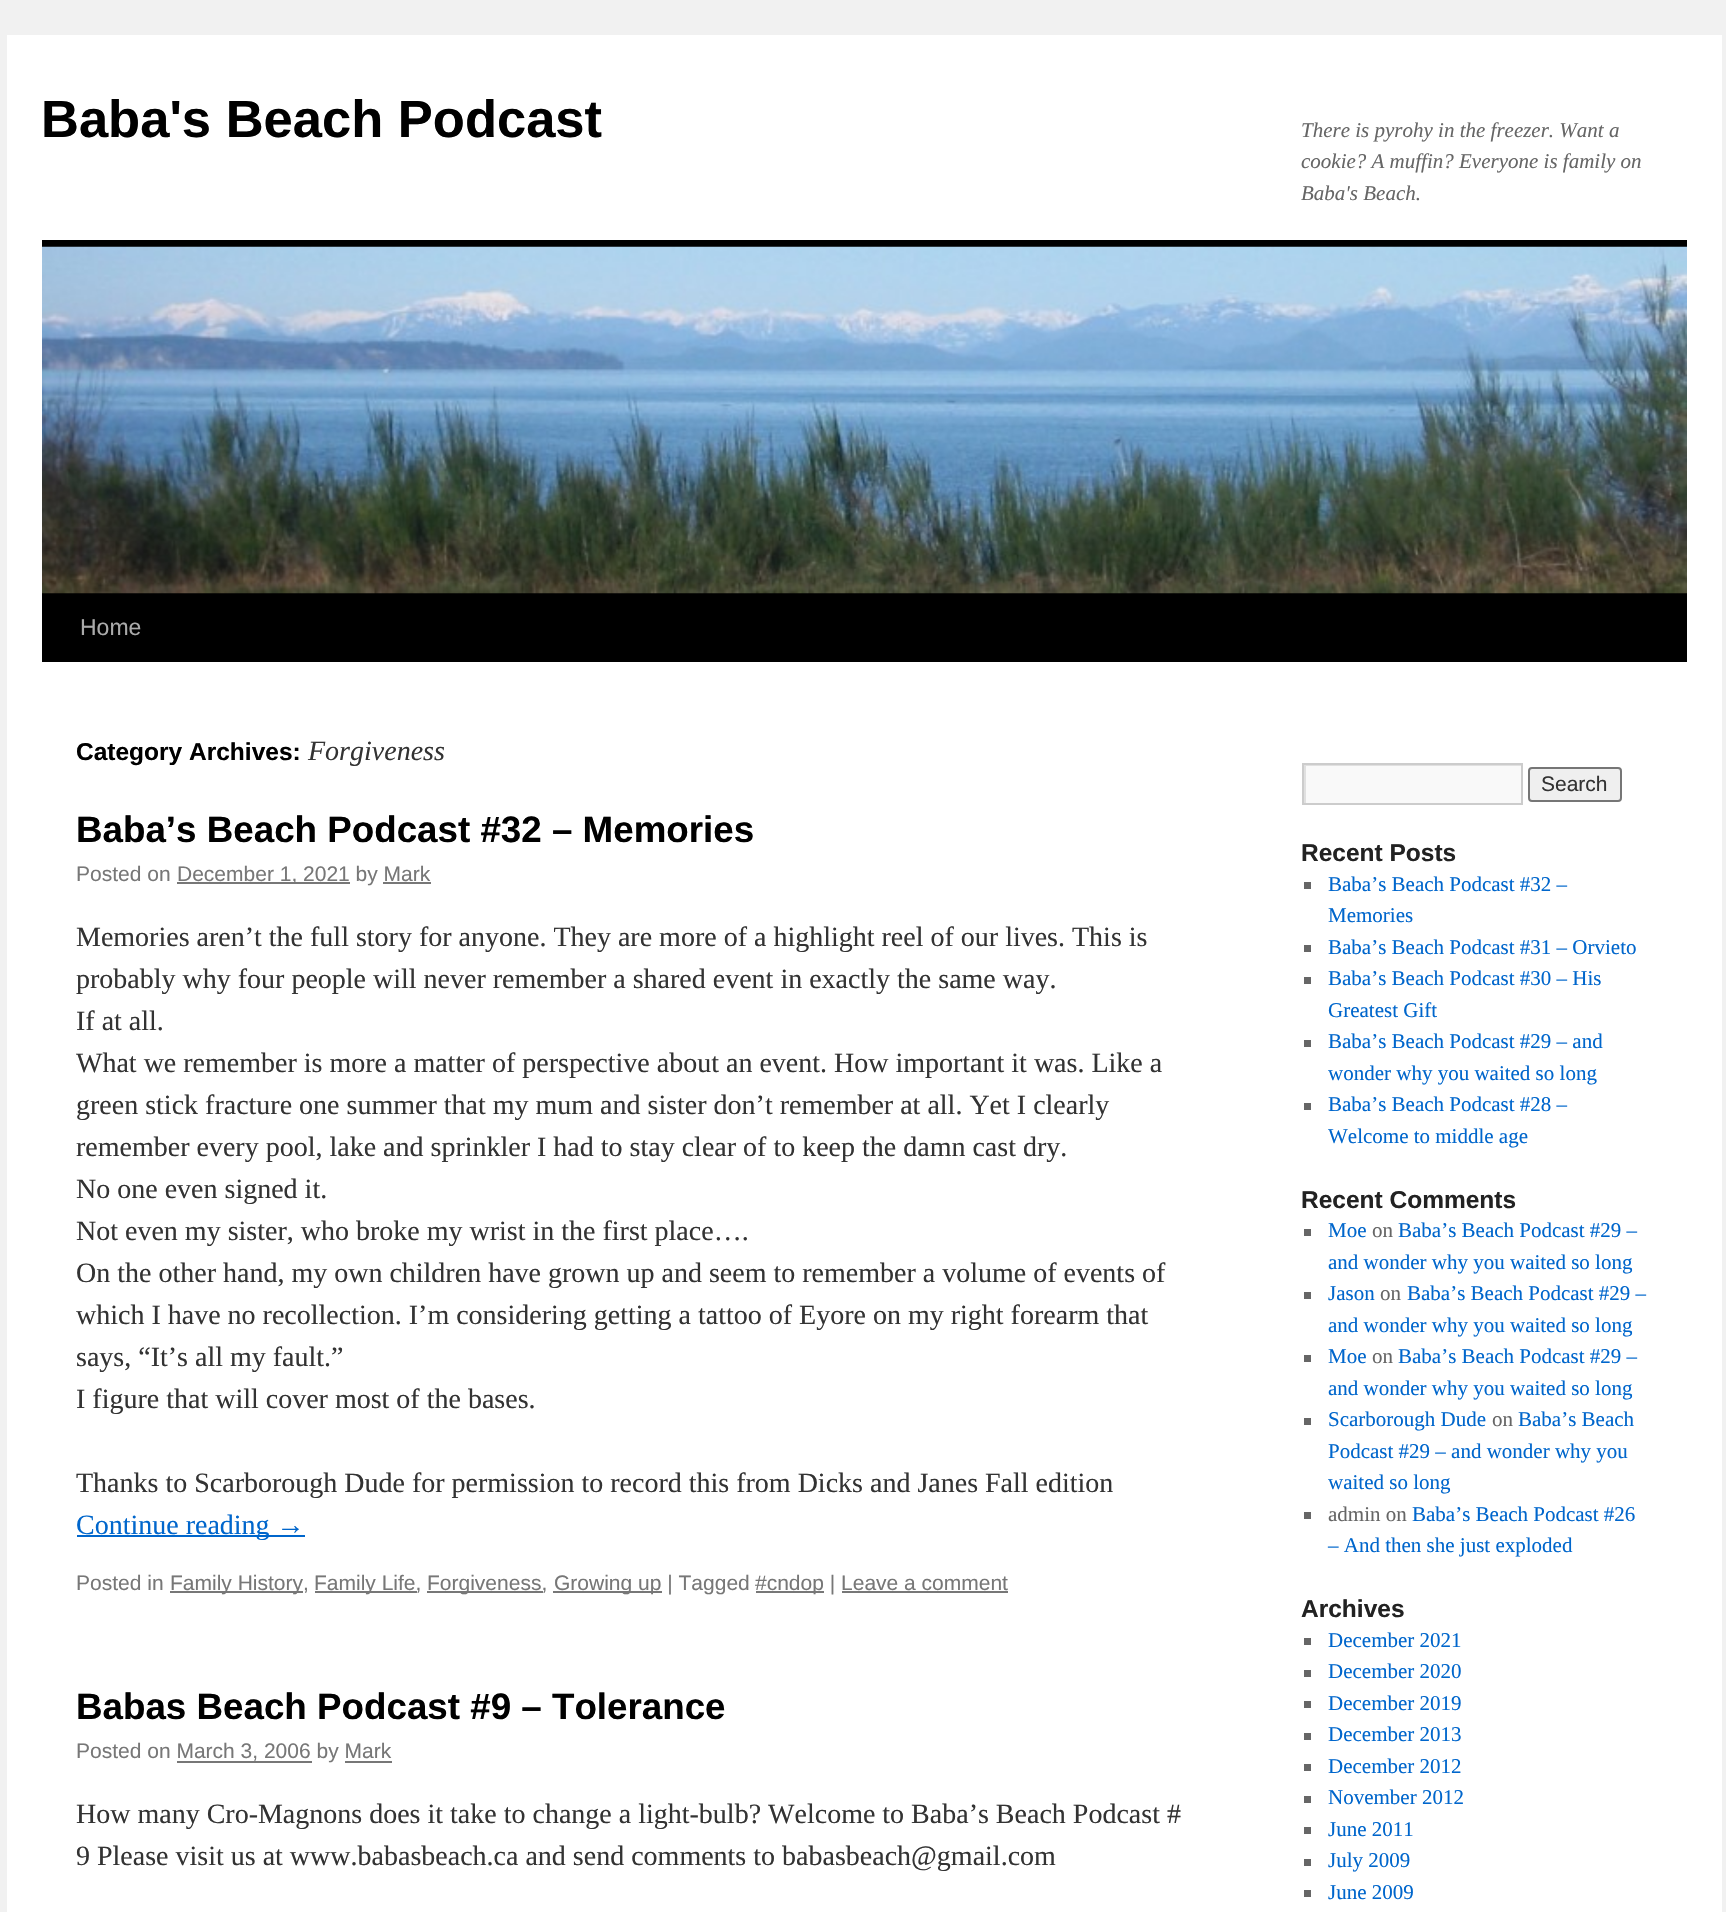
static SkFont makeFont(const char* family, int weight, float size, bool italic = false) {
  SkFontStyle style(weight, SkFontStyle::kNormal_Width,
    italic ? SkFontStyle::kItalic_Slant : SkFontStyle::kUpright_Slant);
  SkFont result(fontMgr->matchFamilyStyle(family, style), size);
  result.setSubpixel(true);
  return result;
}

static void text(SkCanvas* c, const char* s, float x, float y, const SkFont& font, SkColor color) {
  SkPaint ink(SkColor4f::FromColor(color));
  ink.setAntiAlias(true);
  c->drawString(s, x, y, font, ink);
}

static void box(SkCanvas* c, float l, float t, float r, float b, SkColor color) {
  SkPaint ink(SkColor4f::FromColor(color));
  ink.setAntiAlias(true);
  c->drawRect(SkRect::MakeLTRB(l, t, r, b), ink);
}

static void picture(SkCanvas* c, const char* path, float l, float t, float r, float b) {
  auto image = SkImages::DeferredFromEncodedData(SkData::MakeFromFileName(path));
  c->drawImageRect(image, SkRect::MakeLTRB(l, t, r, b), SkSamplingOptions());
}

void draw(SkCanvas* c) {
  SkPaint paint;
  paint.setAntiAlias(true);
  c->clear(0xfff1f1f1);
  box(c, 7, 35, 1722, 1912, 0xffffffff);
  SkFont face1 = makeFont("Liberation Sans", 700, 52.5f);
  text(c, "Baba's Beach Podcast", 41, 137, face1, 0xff000000);
  SkFont face2 = makeFont("Liberation Serif", 400, 21, true);
  text(c, "There is pyrohy in the freezer. Want a", 1301, 137, face2, 0xff666666);
  text(c, "cookie? A muffin? Everyone is family on", 1301, 168, face2, 0xff666666);
  text(c, "Baba's Beach.", 1301, 200, face2, 0xff666666);
  box(c, 42, 240, 1687, 247, 0xff000000);
  box(c, 42, 593, 1687, 662, 0xff000000);
  picture(c, "img_01.png", 42, 246, 1687, 594);
  SkFont face3 = makeFont("Liberation Sans", 400, 23);
  text(c, "Home", 80, 635, face3, 0xffaaaaaa);
  SkFont face4 = makeFont("Liberation Sans", 700, 24.5f);
  text(c, "Category Archives:", 76, 760, face4, 0xff000000);
  SkFont face5 = makeFont("Liberation Serif", 400, 28, true);
  text(c, "Forgiveness", 308, 760, face5, 0xff333333);
  SkFont face6 = makeFont("Liberation Sans", 700, 36.75f);
  text(c, "Baba’s Beach Podcast #32 – Memories", 76, 842, face6, 0xff000000);
  SkFont face7 = makeFont("Liberation Sans", 400, 21);
  text(c, "Posted on", 76, 881, face7, 0xff777777);
  box(c, 177, 882, 350, 884, 0xff777777);
  text(c, "December 1, 2021 by Mark", 177, 881, face7, 0xff777777);
  box(c, 383, 882, 431, 884, 0xff777777);
  SkFont face8 = makeFont("Liberation Serif", 400, 28);
  text(c, "Memories aren’t the full story for anyone. They are more of a highlight reel of our lives. This is", 76, 946, face8, 0xff333333);
  text(c, "probably why four people will never remember a shared event in exactly the same way.", 76, 988, face8, 0xff333333);
  text(c, "If at all.", 76, 1030, face8, 0xff333333);
  text(c, "What we remember is more a matter of perspective about an event. How important it was. Like a", 76, 1072, face8, 0xff333333);
  text(c, "green stick fracture one summer that my mum and sister don’t remember at all. Yet I clearly", 76, 1114, face8, 0xff333333);
  text(c, "remember every pool, lake and sprinkler I had to stay clear of to keep the damn cast dry.", 76, 1156, face8, 0xff333333);
  text(c, "No one even signed it.", 76, 1198, face8, 0xff333333);
  text(c, "Not even my sister, who broke my wrist in the first place….", 76, 1240, face8, 0xff333333);
  text(c, "On the other hand, my own children have grown up and seem to remember a volume of events of", 76, 1282, face8, 0xff333333);
  text(c, "which I have no recollection. I’m considering getting a tattoo of Eyore on my right forearm that", 76, 1324, face8, 0xff333333);
  text(c, "says, “It’s all my fault.”", 76, 1366, face8, 0xff333333);
  text(c, "I figure that will cover most of the bases.", 76, 1408, face8, 0xff333333);
  text(c, "Thanks to Scarborough Dude for permission to record this from Dicks and Janes Fall edition", 76, 1492, face8, 0xff333333);
  box(c, 77, 1535, 305, 1537, 0xff0066cc);
  text(c, "Continue reading →", 76, 1534, face8, 0xff0066cc);
  text(c, "Posted in", 76, 1590, face7, 0xff777777);
  box(c, 170, 1591, 303, 1593, 0xff777777);
  text(c, "Family History,", 170, 1590, face7, 0xff777777);
  box(c, 315, 1591, 417, 1593, 0xff777777);
  text(c, "Family Life,", 314, 1590, face7, 0xff777777);
  box(c, 427, 1591, 543, 1593, 0xff777777);
  text(c, "Forgiveness,", 427, 1590, face7, 0xff777777);
  box(c, 553, 1591, 662, 1593, 0xff777777);
  text(c, "Growing up | Tagged", 554, 1590, face7, 0xff777777);
  box(c, 756, 1591, 824, 1593, 0xff777777);
  text(c, "#cndop | Leave a comment", 755, 1590, face7, 0xff777777);
  box(c, 842, 1591, 1008, 1593, 0xff777777);
  text(c, "Babas Beach Podcast #9 – Tolerance", 76, 1719, face6, 0xff000000);
  text(c, "Posted on March 3, 2006 by Mark", 76, 1758, face7, 0xff777777);
  box(c, 177, 1761, 312, 1763, 0xff777777);
  box(c, 345, 1761, 392, 1763, 0xff777777);
  text(c, "How many Cro-Magnons does it take to change a light-bulb? Welcome to Baba’s Beach Podcast #", 76, 1823, face8, 0xff333333);
  text(c, "9 Please visit us at www.babasbeach.ca and send comments to babasbeach@gmail.com", 76, 1865, face8, 0xff333333);
  box(c, 1306, 766, 1521, 803, 0xfff9f9f9);
  c->save();
  c->clipRect(SkRect::MakeLTRB(1304, 765, 1521, 803));
  paint.setColor(0xffe0e0e0);
  c->drawPath(SkPathBuilder(SkPathFillType::kEvenOdd).moveTo(1130, 592).lineTo(1694, 592).lineTo(1694, 976).lineTo(1130, 976).close().moveTo(1306, 766).lineTo(1522, 766).lineTo(1522, 805).lineTo(1306, 805).close().detach(), paint);
  c->restore();
  paint.setStyle(SkPaint::kStroke_Style);
  paint.setStrokeWidth(2);
  paint.setColor(0xffcccccc);
  c->drawRect(SkRect::MakeLTRB(1303, 764, 1522, 804), paint);
  paint.setStyle(SkPaint::kFill_Style);
  paint.setColor(0xffefefef);
  c->drawRoundRect(SkRect::MakeLTRB(1529, 768, 1621, 801), 3, 3, paint);
  paint.setStyle(SkPaint::kStroke_Style);
  paint.setColor(0xff767676);
  c->drawRoundRect(SkRect::MakeLTRB(1529, 768, 1621, 801), 3, 3, paint);
  text(c, "Search", 1541, 791, face7, 0xff333333);
  text(c, "Recent Posts", 1301, 861, face4, 0xff222222);
  box(c, 1304, 882, 1311, 889, 0xff666666);
  SkFont face9 = makeFont("Liberation Serif", 400, 21);
  text(c, "Baba’s Beach Podcast #32 –", 1328, 891, face9, 0xff0066cc);
  text(c, "Memories", 1328, 922, face9, 0xff0066cc);
  box(c, 1304, 945, 1311, 952, 0xff666666);
  text(c, "Baba’s Beach Podcast #31 – Orvieto", 1328, 954, face9, 0xff0066cc);
  box(c, 1304, 977, 1311, 984, 0xff666666);
  text(c, "Baba’s Beach Podcast #30 – His", 1328, 985, face9, 0xff0066cc);
  text(c, "Greatest Gift", 1328, 1017, face9, 0xff0066cc);
  box(c, 1304, 1040, 1311, 1047, 0xff666666);
  text(c, "Baba’s Beach Podcast #29 – and", 1328, 1048, face9, 0xff0066cc);
  text(c, "wonder why you waited so long", 1328, 1080, face9, 0xff0066cc);
  box(c, 1304, 1103, 1311, 1110, 0xff666666);
  text(c, "Baba’s Beach Podcast #28 –", 1328, 1111, face9, 0xff0066cc);
  text(c, "Welcome to middle age", 1328, 1143, face9, 0xff0066cc);
  text(c, "Recent Comments", 1301, 1208, face4, 0xff222222);
  box(c, 1304, 1229, 1311, 1236, 0xff666666);
  text(c, "Moe", 1328, 1237, face9, 0xff0066cc);
  text(c, "on", 1372, 1237, face9, 0xff666666);
  text(c, "Baba’s Beach Podcast #29 –", 1398, 1237, face9, 0xff0066cc);
  text(c, "and wonder why you waited so long", 1328, 1269, face9, 0xff0066cc);
  box(c, 1304, 1292, 1311, 1299, 0xff666666);
  text(c, "Jason", 1328, 1300, face9, 0xff0066cc);
  text(c, "on", 1380, 1300, face9, 0xff666666);
  text(c, "Baba’s Beach Podcast #29 –", 1407, 1300, face9, 0xff0066cc);
  text(c, "and wonder why you waited so long", 1328, 1332, face9, 0xff0066cc);
  box(c, 1304, 1355, 1311, 1362, 0xff666666);
  text(c, "Moe", 1328, 1363, face9, 0xff0066cc);
  text(c, "on", 1372, 1363, face9, 0xff666666);
  text(c, "Baba’s Beach Podcast #29 –", 1398, 1363, face9, 0xff0066cc);
  text(c, "and wonder why you waited so long", 1328, 1395, face9, 0xff0066cc);
  box(c, 1304, 1418, 1311, 1425, 0xff666666);
  text(c, "Scarborough Dude", 1328, 1426, face9, 0xff0066cc);
  text(c, "on", 1492, 1426, face9, 0xff666666);
  text(c, "Baba’s Beach", 1518, 1426, face9, 0xff0066cc);
  text(c, "Podcast #29 – and wonder why you", 1328, 1458, face9, 0xff0066cc);
  text(c, "waited so long", 1328, 1489, face9, 0xff0066cc);
  box(c, 1304, 1512, 1311, 1519, 0xff666666);
  text(c, "admin on", 1328, 1521, face9, 0xff666666);
  text(c, "Baba’s Beach Podcast #26", 1412, 1521, face9, 0xff0066cc);
  text(c, "– And then she just exploded", 1328, 1552, face9, 0xff0066cc);
  text(c, "Archives", 1301, 1617, face4, 0xff222222);
  box(c, 1304, 1638, 1311, 1645, 0xff666666);
  text(c, "December 2021", 1328, 1647, face9, 0xff0066cc);
  box(c, 1304, 1670, 1311, 1677, 0xff666666);
  text(c, "December 2020", 1328, 1678, face9, 0xff0066cc);
  box(c, 1304, 1701, 1311, 1708, 0xff666666);
  text(c, "December 2019", 1328, 1710, face9, 0xff0066cc);
  box(c, 1304, 1733, 1311, 1740, 0xff666666);
  text(c, "December 2013", 1328, 1741, face9, 0xff0066cc);
  box(c, 1304, 1764, 1311, 1771, 0xff666666);
  text(c, "December 2012", 1328, 1773, face9, 0xff0066cc);
  box(c, 1304, 1796, 1311, 1803, 0xff666666);
  text(c, "November 2012", 1328, 1804, face9, 0xff0066cc);
  box(c, 1304, 1827, 1311, 1834, 0xff666666);
  text(c, "June 2011", 1328, 1836, face9, 0xff0066cc);
  box(c, 1304, 1859, 1311, 1866, 0xff666666);
  text(c, "July 2009", 1328, 1867, face9, 0xff0066cc);
  box(c, 1304, 1890, 1311, 1897, 0xff666666);
  text(c, "June 2009", 1328, 1899, face9, 0xff0066cc);
}
